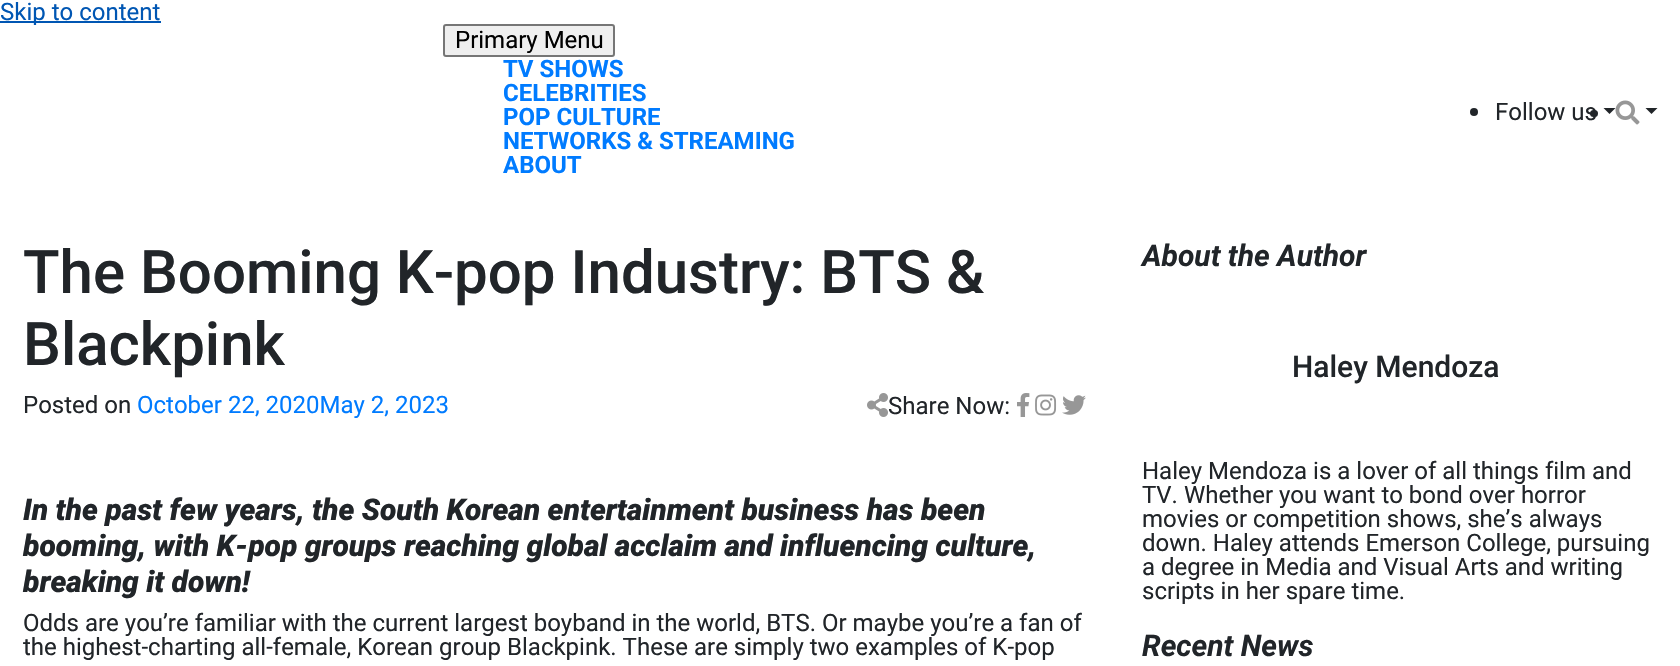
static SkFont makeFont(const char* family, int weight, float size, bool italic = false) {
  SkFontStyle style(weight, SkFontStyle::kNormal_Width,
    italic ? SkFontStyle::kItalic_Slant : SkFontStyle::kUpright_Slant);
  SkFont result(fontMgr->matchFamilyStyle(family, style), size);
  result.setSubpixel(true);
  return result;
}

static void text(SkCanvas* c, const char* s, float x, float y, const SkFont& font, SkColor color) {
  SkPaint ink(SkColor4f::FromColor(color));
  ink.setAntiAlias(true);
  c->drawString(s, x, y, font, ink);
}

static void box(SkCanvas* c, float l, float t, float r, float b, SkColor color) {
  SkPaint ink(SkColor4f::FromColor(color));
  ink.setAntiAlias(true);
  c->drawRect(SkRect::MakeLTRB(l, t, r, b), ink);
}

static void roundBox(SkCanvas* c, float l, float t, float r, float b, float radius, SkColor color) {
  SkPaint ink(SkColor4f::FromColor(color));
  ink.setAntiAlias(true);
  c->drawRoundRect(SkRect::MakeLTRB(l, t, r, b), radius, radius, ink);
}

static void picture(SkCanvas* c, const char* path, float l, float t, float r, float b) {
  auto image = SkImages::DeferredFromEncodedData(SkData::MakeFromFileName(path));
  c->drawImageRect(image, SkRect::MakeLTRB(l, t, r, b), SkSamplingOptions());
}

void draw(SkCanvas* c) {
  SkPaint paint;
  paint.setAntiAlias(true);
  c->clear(0xffffffff);
  box(c, 0, 21, 161, 23, 0xff0056b3);
  SkFont face1 = makeFont("Roboto", 400, 24);
  text(c, "Skip to content", 0, 20, face1, 0xff0056b3);
  paint.setColor(0xffefefef);
  c->drawRoundRect(SkRect::MakeLTRB(444, 25, 614, 56), 2, 2, paint);
  paint.setStyle(SkPaint::kStroke_Style);
  paint.setStrokeWidth(2);
  paint.setColor(0xff767676);
  c->drawRoundRect(SkRect::MakeLTRB(444, 25, 614, 56), 2, 2, paint);
  text(c, "Primary Menu", 455, 48, face1, 0xff000000);
  SkFont face2 = makeFont("Roboto", 700, 24);
  text(c, "TV SHOWS", 503, 77, face2, 0xff007bff);
  text(c, "CELEBRITIES", 503, 101, face2, 0xff007bff);
  text(c, "POP CULTURE", 503, 125, face2, 0xff007bff);
  text(c, "NETWORKS & STREAMING", 503, 149, face2, 0xff007bff);
  text(c, "ABOUT", 503, 173, face2, 0xff007bff);
  paint.setStyle(SkPaint::kFill_Style);
  paint.setColor(0xff212529);
  c->drawCircle(1474, 112, 4, paint);
  text(c, "Follow us", 1495, 120, face1, 0xff212529);
  c->drawPath(SkPathBuilder().moveTo(1603.5f, 108).lineTo(1615.5f, 108).lineTo(1609.5f, 114).close().detach(), paint);
  roundBox(c, 1590, 110, 1598, 117, 3.5f, 0xff212529);
  picture(c, "img_01.png", 1615, 100, 1640, 125);
  c->drawPath(SkPathBuilder().moveTo(1645.5f, 108).lineTo(1657.5f, 108).lineTo(1651.5f, 114).close().detach(), paint);
  SkFont face3 = makeFont("Roboto", 500, 60);
  text(c, "The Booming K-pop Industry: BTS &", 23, 293, face3, 0xff212529);
  text(c, "Blackpink", 23, 365, face3, 0xff212529);
  text(c, "Posted on", 23, 413, face1, 0xff212529);
  text(c, "October 22, 2020May 2, 2023", 137, 413, face1, 0xff007bff);
  picture(c, "img_02.png", 867, 393, 888, 417);
  text(c, "Share Now:", 888, 414, face1, 0xff212529);
  picture(c, "img_03.png", 1017, 393, 1030, 417);
  picture(c, "img_04.png", 1035, 394, 1057, 416);
  picture(c, "img_05.png", 1062, 395, 1086, 415);
  SkFont face4 = makeFont("Roboto", 900, 30, true);
  text(c, "In the past few years, the South Korean entertainment business has been", 23, 520, face4, 0xff212529);
  text(c, "booming, with K-pop groups reaching global acclaim and influencing culture,", 23, 556, face4, 0xff212529);
  text(c, "breaking it down!", 23, 592, face4, 0xff212529);
  text(c, "Odds are you’re familiar with the current largest boyband in the world, BTS. Or maybe you’re a fan of", 23, 631, face1, 0xff212529);
  text(c, "the highest-charting all-female, Korean group Blackpink. These are simply two examples of K-pop", 23, 655, face1, 0xff212529);
  SkFont face5 = makeFont("Roboto", 700, 30, true);
  text(c, "About the Author", 1142, 266, face5, 0xff212529);
  SkFont face6 = makeFont("Roboto", 500, 30);
  text(c, "Haley Mendoza", 1292, 377, face6, 0xff212529);
  text(c, "Haley Mendoza is a lover of all things film and", 1142, 479, face1, 0xff212529);
  text(c, "TV. Whether you want to bond over horror", 1142, 503, face1, 0xff212529);
  text(c, "movies or competition shows, she’s always", 1142, 527, face1, 0xff212529);
  text(c, "down. Haley attends Emerson College, pursuing", 1142, 551, face1, 0xff212529);
  text(c, "a degree in Media and Visual Arts and writing", 1142, 575, face1, 0xff212529);
  text(c, "scripts in her spare time.", 1142, 599, face1, 0xff212529);
  text(c, "Recent News", 1142, 656, face5, 0xff212529);
}
